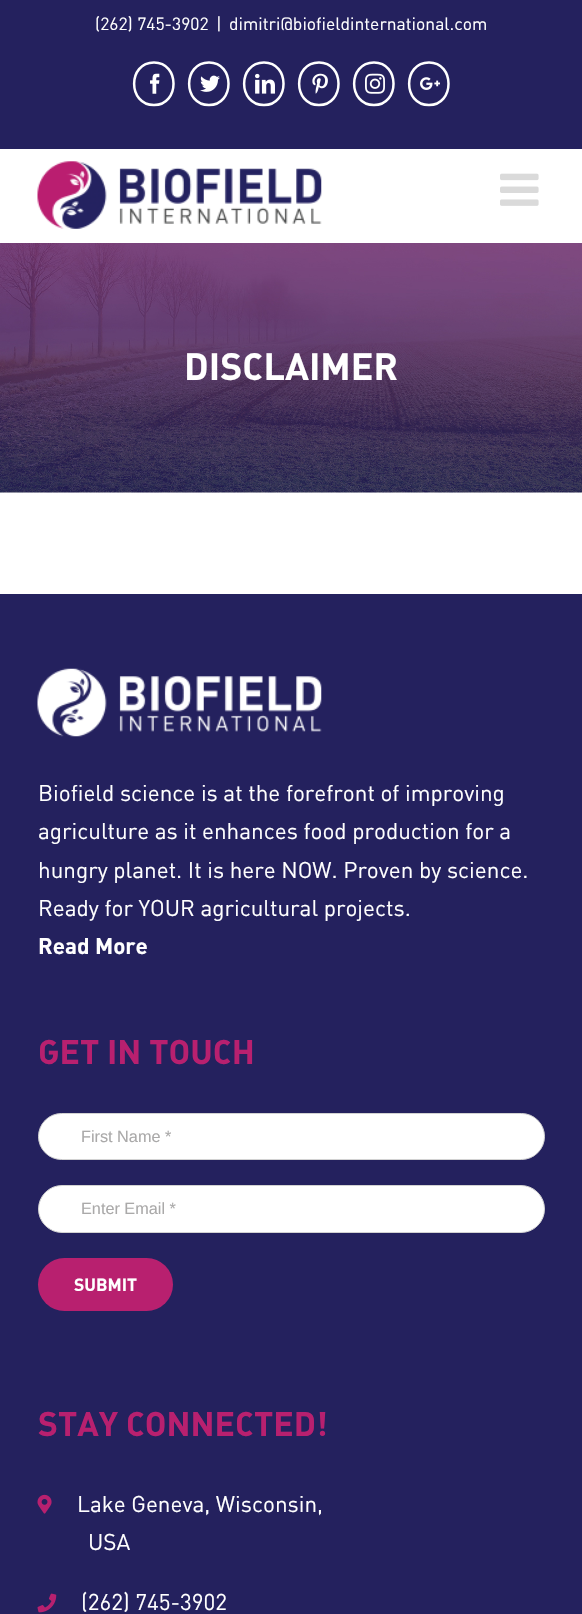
static SkFont makeFont(const char* family, int weight, float size, bool italic = false) {
  SkFontStyle style(weight, SkFontStyle::kNormal_Width,
    italic ? SkFontStyle::kItalic_Slant : SkFontStyle::kUpright_Slant);
  SkFont result(fontMgr->matchFamilyStyle(family, style), size);
  result.setSubpixel(true);
  return result;
}

static void text(SkCanvas* c, const char* s, float x, float y, const SkFont& font, SkColor color) {
  SkPaint ink(SkColor4f::FromColor(color));
  ink.setAntiAlias(true);
  c->drawString(s, x, y, font, ink);
}

static void box(SkCanvas* c, float l, float t, float r, float b, SkColor color) {
  SkPaint ink(SkColor4f::FromColor(color));
  ink.setAntiAlias(true);
  c->drawRect(SkRect::MakeLTRB(l, t, r, b), ink);
}

static void roundBox(SkCanvas* c, float l, float t, float r, float b, float radius, SkColor color) {
  SkPaint ink(SkColor4f::FromColor(color));
  ink.setAntiAlias(true);
  c->drawRoundRect(SkRect::MakeLTRB(l, t, r, b), radius, radius, ink);
}

static void picture(SkCanvas* c, const char* path, float l, float t, float r, float b) {
  auto image = SkImages::DeferredFromEncodedData(SkData::MakeFromFileName(path));
  c->drawImageRect(image, SkRect::MakeLTRB(l, t, r, b), SkSamplingOptions());
}

void draw(SkCanvas* c) {
  SkPaint paint;
  paint.setAntiAlias(true);
  c->clear(0xffffffff);
  box(c, 0, 0, 582, 149, 0xff24215e);
  SkFont face1 = makeFont("DIN", 400, 17.5f);
  text(c, "(262) 745-3902", 95, 30, face1, 0xffffffff);
  text(c, "|", 216, 30, face1, 0xffffffff);
  text(c, "dimitri@biofieldinternational.com", 229, 30, face1, 0xffffffff);
  paint.setStyle(SkPaint::kStroke_Style);
  paint.setStrokeWidth(2.5f);
  paint.setColor(0xffffffff);
  c->drawPath(SkPathBuilder().moveTo(154, 62.5f).cubicTo(180, 62.5f, 180, 105, 154, 105).cubicTo(127.5f, 105, 127.5f, 62.5f, 154, 62.5f).close().detach(), paint);
  picture(c, "img_01.png", 150, 73, 160, 94);
  c->drawPath(SkPathBuilder().moveTo(209, 62.5f).cubicTo(235, 62.5f, 235, 105, 209, 105).cubicTo(182.5f, 105, 182.5f, 62.5f, 209, 62.5f).close().detach(), paint);
  picture(c, "img_02.png", 200, 75, 220, 92);
  c->drawPath(SkPathBuilder().moveTo(264, 62.5f).cubicTo(290, 62.5f, 290, 105, 264, 105).cubicTo(237.5f, 105, 237.5f, 62.5f, 264, 62.5f).close().detach(), paint);
  picture(c, "img_03.png", 255, 73, 275, 94);
  c->drawPath(SkPathBuilder().moveTo(319, 62.5f).cubicTo(345, 62.5f, 345, 105, 319, 105).cubicTo(292.5f, 105, 292.5f, 62.5f, 319, 62.5f).close().detach(), paint);
  picture(c, "img_04.png", 312, 73, 328, 94);
  c->drawPath(SkPathBuilder().moveTo(374, 62.5f).cubicTo(400, 62.5f, 400, 105, 374, 105).cubicTo(347.5f, 105, 347.5f, 62.5f, 374, 62.5f).close().detach(), paint);
  picture(c, "img_05.png", 365, 73, 385, 94);
  c->drawPath(SkPathBuilder().moveTo(429, 62.5f).cubicTo(455, 62.5f, 455, 105, 429, 105).cubicTo(402.5f, 105, 402.5f, 62.5f, 429, 62.5f).close().detach(), paint);
  picture(c, "img_06.png", 420, 77, 440, 90);
  picture(c, "img_07.png", 37, 161, 322, 229);
  picture(c, "img_08.png", 500, 173, 539, 206);
  box(c, 0, 492, 582, 493, 0xfff6f6f6);
  picture(c, "img_09.png", 0, 243, 582, 493);
  SkFont face2 = makeFont("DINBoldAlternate", 700, 37.5f);
  text(c, "DISCLAIMER", 184, 380, face2, 0xffffffff);
  box(c, 0, 594, 582, 1614, 0xff24215e);
  picture(c, "img_10.png", 37, 668, 322, 737);
  SkFont face3 = makeFont("DIN", 400, 22.5f);
  text(c, "Biofield science is at the forefront of improving", 38, 801, face3, 0xffffffff);
  text(c, "agriculture as it enhances food production for a", 38, 839, face3, 0xffffffff);
  text(c, "hungry planet. It is here NOW. Proven by science.", 38, 878, face3, 0xffffffff);
  text(c, "Ready for YOUR agricultural projects.", 38, 916, face3, 0xffffffff);
  SkFont face4 = makeFont("DINBoldAlternate", 700, 22.5f);
  text(c, "Read More", 38, 954, face4, 0xffffffff);
  SkFont face5 = makeFont("DINBoldAlternate", 700, 33.75f);
  text(c, "GET IN TOUCH", 38, 1064, face5, 0xffb8206f);
  paint.setStyle(SkPaint::kFill_Style);
  c->drawRoundRect(SkRect::MakeLTRB(38.5f, 1113.5f, 544.5f, 1159.5f), 23, 23, paint);
  paint.setStyle(SkPaint::kStroke_Style);
  paint.setStrokeWidth(1);
  paint.setColor(0xffd2d2d2);
  c->drawRoundRect(SkRect::MakeLTRB(38.5f, 1113.5f, 544.5f, 1159.5f), 23, 23, paint);
  SkFont face6 = makeFont("Liberation Sans", 400, 16.25f);
  text(c, "First Name *", 81, 1142, face6, 0xffaaa9a9);
  paint.setStyle(SkPaint::kFill_Style);
  paint.setColor(0xffffffff);
  c->drawRoundRect(SkRect::MakeLTRB(38.5f, 1185.5f, 544.5f, 1232.5f), 23.5f, 23.5f, paint);
  paint.setStyle(SkPaint::kStroke_Style);
  paint.setColor(0xffd2d2d2);
  c->drawRoundRect(SkRect::MakeLTRB(38.5f, 1185.5f, 544.5f, 1232.5f), 23.5f, 23.5f, paint);
  text(c, "Enter Email *", 81, 1214, face6, 0xffaaa9a9);
  roundBox(c, 38, 1258, 173, 1311, 26.5f, 0xffb8206f);
  SkFont face7 = makeFont("DINBoldAlternate", 700, 17.5f);
  text(c, "SUBMIT", 74, 1291, face7, 0xffffffff);
  text(c, "STAY CONNECTED!", 38, 1436, face5, 0xffb8206f);
  picture(c, "img_11.png", 37, 1494, 52, 1514);
  text(c, "Lake Geneva, Wisconsin,", 77, 1512, face3, 0xffffffff);
  text(c, "USA", 88, 1550, face3, 0xffffffff);
  picture(c, "img_12.png", 37, 1593, 57, 1613);
  text(c, "(262) 745-3902", 81, 1610, face3, 0xffffffff);
}
